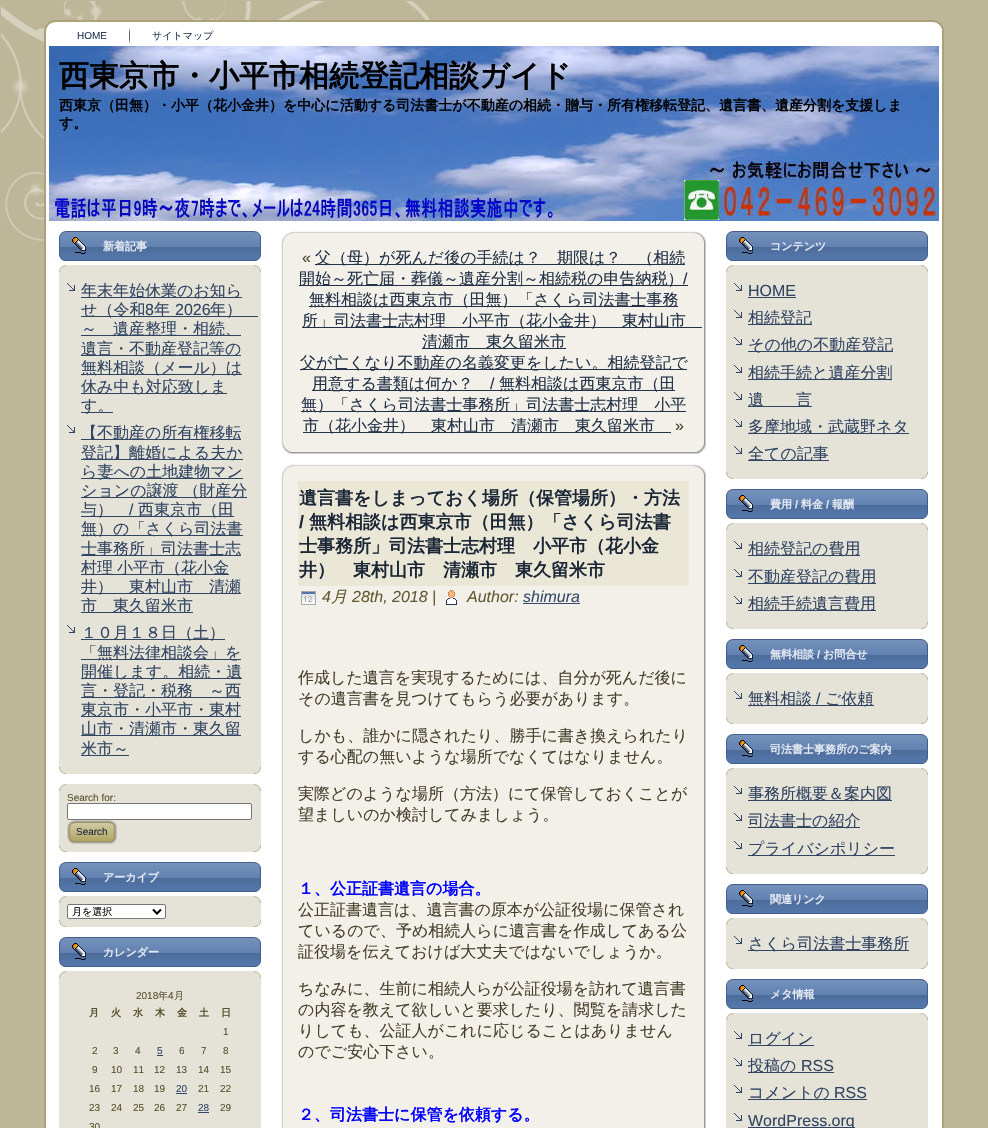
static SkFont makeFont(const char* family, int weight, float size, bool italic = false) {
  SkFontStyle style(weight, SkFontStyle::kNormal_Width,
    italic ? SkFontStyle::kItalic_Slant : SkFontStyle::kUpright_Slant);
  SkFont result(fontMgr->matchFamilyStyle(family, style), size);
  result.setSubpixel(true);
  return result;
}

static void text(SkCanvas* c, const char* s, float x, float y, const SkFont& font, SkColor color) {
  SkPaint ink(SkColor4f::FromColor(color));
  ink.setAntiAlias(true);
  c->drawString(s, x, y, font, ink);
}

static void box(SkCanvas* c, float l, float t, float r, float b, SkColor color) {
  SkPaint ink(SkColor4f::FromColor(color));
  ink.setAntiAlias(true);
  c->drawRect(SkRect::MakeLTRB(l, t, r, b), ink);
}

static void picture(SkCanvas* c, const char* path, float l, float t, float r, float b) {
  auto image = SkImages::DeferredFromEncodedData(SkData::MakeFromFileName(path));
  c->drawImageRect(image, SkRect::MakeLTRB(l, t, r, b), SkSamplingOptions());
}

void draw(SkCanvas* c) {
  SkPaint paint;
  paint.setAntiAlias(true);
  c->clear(0xffbdb698);
  picture(c, "img_01.png", 1, 1, 431, 242);
  picture(c, "img_02.png", 44, 20, 55, 31);
  picture(c, "img_03.png", 55, 20, 933, 31);
  picture(c, "img_04.png", 933, 20, 944, 31);
  picture(c, "img_05.png", 44, 31, 55, 1128);
  box(c, 55, 31, 933, 1128, 0xffffffff);
  SkFont face1 = makeFont("Liberation Sans", 400, 10);
  text(c, "HOME", 77, 39, face1, 0xff2a3b55);
  picture(c, "img_06.png", 129, 28, 130, 44);
  SkFont face2 = makeFont("WenQuanYi Zen Hei", 500, 10);
  text(c, "サイトマップ", 152, 39, face2, 0xff2a3b55);
  picture(c, "img_31.png", 933, 31, 944, 1128);
  picture(c, "img_07.png", 49, 46, 939, 221);
  SkFont face3 = makeFont("WenQuanYi Zen Hei", 700, 30);
  text(c, "西東京市・小平市相続登記相談ガイド", 59, 86, face3, 0xff000000);
  SkFont face4 = makeFont("WenQuanYi Zen Hei", 700, 14);
  text(c, "西東京（田無）・小平（花小金井）を中心に活動する司法書士が不動産の相続・贈与・所有権移転登記、遺言書、遺産分割を支援しま", 59, 110, face4, 0xff000000);
  text(c, "す。", 59, 128, face4, 0xff000000);
  picture(c, "img_08.png", 59, 231, 254, 261);
  picture(c, "img_09.png", 254, 231, 261, 261);
  picture(c, "img_10.png", 72, 237, 86, 254);
  SkFont face5 = makeFont("WenQuanYi Zen Hei", 700, 11);
  text(c, "新着記事", 103, 250, face5, 0xffe4e9f2);
  picture(c, "img_11.png", 59, 265, 66, 272);
  box(c, 66, 265, 254, 272, 0xffe5e2d7);
  picture(c, "img_12.png", 254, 265, 261, 272);
  box(c, 59, 272, 66, 767, 0xffe5e2d7);
  box(c, 66, 272, 261, 767, 0xffe5e2d7);
  picture(c, "img_13.png", 67, 283, 75, 291);
  box(c, 81, 297, 242, 298, 0xff314563);
  SkFont face6 = makeFont("WenQuanYi Zen Hei", 500, 16);
  text(c, "年末年始休業のお知ら", 81, 296, face6, 0xff314563);
  box(c, 81, 316, 258, 317, 0xff314563);
  text(c, "せ（令和", 81, 315, face6, 0xff314563);
  SkFont face7 = makeFont("Liberation Sans", 400, 16);
  text(c, "8", 145, 315, face7, 0xff314563);
  text(c, "年", 154, 315, face6, 0xff314563);
  text(c, "2026", 175, 315, face7, 0xff314563);
  text(c, "年）", 210, 315, face6, 0xff314563);
  box(c, 81, 335, 241, 336, 0xff314563);
  text(c, "～　遺産整理・相続、", 81, 334, face6, 0xff314563);
  box(c, 81, 355, 241, 356, 0xff314563);
  text(c, "遺言・不動産登記等の", 81, 354, face6, 0xff314563);
  box(c, 81, 374, 242, 375, 0xff314563);
  text(c, "無料相談（メール）は", 81, 373, face6, 0xff314563);
  box(c, 81, 393, 227, 394, 0xff314563);
  text(c, "休み中も対応致しま", 81, 392, face6, 0xff314563);
  box(c, 81, 412, 113, 413, 0xff314563);
  text(c, "す。", 81, 411, face6, 0xff314563);
  picture(c, "img_13.png", 67, 425, 75, 433);
  box(c, 81, 439, 241, 440, 0xff314563);
  text(c, "【不動産の所有権移転", 81, 438, face6, 0xff314563);
  box(c, 81, 459, 243, 460, 0xff314563);
  text(c, "登記】離婚による夫か", 81, 458, face6, 0xff314563);
  box(c, 81, 478, 243, 479, 0xff314563);
  text(c, "ら妻への土地建物マン", 81, 477, face6, 0xff314563);
  box(c, 81, 497, 247, 498, 0xff314563);
  text(c, "ションの譲渡 （財産分", 81, 496, face6, 0xff314563);
  box(c, 81, 516, 234, 517, 0xff314563);
  text(c, "与）", 81, 515, face6, 0xff314563);
  text(c, "/", 129, 515, face7, 0xff314563);
  text(c, "西東京市（田", 138, 515, face6, 0xff314563);
  box(c, 81, 535, 243, 536, 0xff314563);
  text(c, "無）の「さくら司法書", 81, 534, face6, 0xff314563);
  box(c, 81, 555, 241, 556, 0xff314563);
  text(c, "士事務所」司法書士志", 81, 554, face6, 0xff314563);
  box(c, 81, 574, 229, 575, 0xff314563);
  text(c, "村理", 81, 573, face6, 0xff314563);
  text(c, "小平市（花小金", 117, 573, face6, 0xff314563);
  box(c, 81, 593, 241, 594, 0xff314563);
  text(c, "井）　東村山市　清瀬", 81, 592, face6, 0xff314563);
  box(c, 81, 612, 193, 613, 0xff314563);
  text(c, "市　東久留米市", 81, 611, face6, 0xff314563);
  picture(c, "img_13.png", 67, 625, 75, 633);
  box(c, 81, 639, 225, 640, 0xff314563);
  text(c, "１０月１８日（土）", 81, 638, face6, 0xff314563);
  box(c, 81, 659, 241, 660, 0xff314563);
  text(c, "「無料法律相談会」を", 81, 658, face6, 0xff314563);
  box(c, 81, 678, 242, 679, 0xff314563);
  text(c, "開催します。相続・遺", 81, 677, face6, 0xff314563);
  box(c, 81, 697, 241, 698, 0xff314563);
  text(c, "言・登記・税務　～西", 81, 696, face6, 0xff314563);
  box(c, 81, 716, 241, 717, 0xff314563);
  text(c, "東京市・小平市・東村", 81, 715, face6, 0xff314563);
  box(c, 81, 735, 241, 736, 0xff314563);
  text(c, "山市・清瀬市・東久留", 81, 734, face6, 0xff314563);
  box(c, 81, 755, 129, 756, 0xff314563);
  text(c, "米市～", 81, 754, face6, 0xff314563);
  picture(c, "img_14.png", 59, 767, 66, 774);
  box(c, 66, 767, 254, 774, 0xffe5e2d7);
  picture(c, "img_15.png", 254, 767, 261, 774);
  picture(c, "img_11.png", 59, 784, 66, 791);
  box(c, 66, 784, 254, 791, 0xffe5e2d7);
  picture(c, "img_12.png", 254, 784, 261, 791);
  box(c, 59, 791, 66, 845, 0xffe5e2d7);
  box(c, 66, 791, 261, 845, 0xffe5e2d7);
  text(c, "Search for:", 67, 801, face1, 0xff58522c);
  paint.setColor(0xffffffff);
  c->drawRoundRect(SkRect::MakeLTRB(67.5f, 803.5f, 251.5f, 819.5f), 1.5f, 1.5f, paint);
  paint.setStyle(SkPaint::kStroke_Style);
  paint.setStrokeWidth(1);
  paint.setColor(0xff767676);
  c->drawRoundRect(SkRect::MakeLTRB(67.5f, 803.5f, 251.5f, 819.5f), 1.5f, 1.5f, paint);
  picture(c, "img_16.png", 67, 820, 107, 844);
  picture(c, "img_17.png", 107, 820, 117, 844);
  text(c, "Search", 76, 835, face1, 0xff1e2b3e);
  picture(c, "img_14.png", 59, 845, 66, 852);
  box(c, 66, 845, 254, 852, 0xffe5e2d7);
  picture(c, "img_15.png", 254, 845, 261, 852);
  picture(c, "img_08.png", 59, 862, 254, 892);
  picture(c, "img_09.png", 254, 862, 261, 892);
  picture(c, "img_10.png", 72, 868, 86, 885);
  text(c, "アーカイブ", 103, 881, face5, 0xffe4e9f2);
  picture(c, "img_11.png", 59, 896, 66, 903);
  box(c, 66, 896, 254, 903, 0xffe5e2d7);
  picture(c, "img_12.png", 254, 896, 261, 903);
  box(c, 59, 903, 66, 920, 0xffe5e2d7);
  box(c, 66, 903, 261, 920, 0xffe5e2d7);
  paint.setStyle(SkPaint::kFill_Style);
  paint.setColor(0xffffffff);
  c->drawRoundRect(SkRect::MakeLTRB(67.5f, 904.5f, 165.5f, 918.5f), 1.5f, 1.5f, paint);
  paint.setStyle(SkPaint::kStroke_Style);
  paint.setColor(0xff767676);
  c->drawRoundRect(SkRect::MakeLTRB(67.5f, 904.5f, 165.5f, 918.5f), 1.5f, 1.5f, paint);
  paint.setStrokeWidth(2);
  paint.setColor(0xff000000);
  c->drawPath(SkPathBuilder().moveTo(153, 909.5f).lineTo(157, 913.5f).lineTo(161, 909.5f).detach(), paint);
  text(c, "月を選択", 72, 915, face2, 0xff000000);
  picture(c, "img_14.png", 59, 920, 66, 927);
  box(c, 66, 920, 254, 927, 0xffe5e2d7);
  picture(c, "img_15.png", 254, 920, 261, 927);
  picture(c, "img_08.png", 59, 937, 254, 967);
  picture(c, "img_09.png", 254, 937, 261, 967);
  picture(c, "img_10.png", 72, 943, 86, 960);
  text(c, "カレンダー", 103, 956, face5, 0xffe4e9f2);
  picture(c, "img_11.png", 59, 971, 66, 978);
  box(c, 66, 971, 254, 978, 0xffe5e2d7);
  picture(c, "img_12.png", 254, 971, 261, 978);
  box(c, 59, 978, 66, 1128, 0xffe5e2d7);
  box(c, 66, 978, 261, 1128, 0xffe5e2d7);
  text(c, "2018", 136, 999, face1, 0xff58522c);
  text(c, "年", 158, 999, face2, 0xff58522c);
  text(c, "4", 168, 999, face1, 0xff58522c);
  text(c, "月", 174, 999, face2, 0xff58522c);
  SkFont face8 = makeFont("WenQuanYi Zen Hei", 700, 10);
  text(c, "月", 89, 1016, face8, 0xff58522c);
  text(c, "火", 111, 1016, face8, 0xff58522c);
  text(c, "水", 133, 1016, face8, 0xff58522c);
  text(c, "木", 155, 1016, face8, 0xff58522c);
  text(c, "金", 177, 1016, face8, 0xff58522c);
  text(c, "土", 199, 1016, face8, 0xff58522c);
  text(c, "日", 221, 1016, face8, 0xff58522c);
  text(c, "1", 223, 1035, face1, 0xff58522c);
  text(c, "2", 92, 1054, face1, 0xff58522c);
  text(c, "3", 113, 1054, face1, 0xff58522c);
  text(c, "4", 135, 1054, face1, 0xff58522c);
  text(c, "5", 157, 1054, face1, 0xff314563);
  box(c, 157, 1055, 163, 1056, 0xff314563);
  text(c, "6", 179, 1054, face1, 0xff58522c);
  text(c, "7", 201, 1054, face1, 0xff58522c);
  text(c, "8", 223, 1054, face1, 0xff58522c);
  text(c, "9", 92, 1073, face1, 0xff58522c);
  text(c, "10", 111, 1073, face1, 0xff58522c);
  text(c, "11", 133, 1073, face1, 0xff58522c);
  text(c, "12", 154, 1073, face1, 0xff58522c);
  text(c, "13", 176, 1073, face1, 0xff58522c);
  text(c, "14", 198, 1073, face1, 0xff58522c);
  text(c, "15", 220, 1073, face1, 0xff58522c);
  text(c, "16", 89, 1092, face1, 0xff58522c);
  text(c, "17", 111, 1092, face1, 0xff58522c);
  text(c, "18", 133, 1092, face1, 0xff58522c);
  text(c, "19", 154, 1092, face1, 0xff58522c);
  text(c, "20", 176, 1092, face1, 0xff314563);
  box(c, 176, 1093, 187, 1094, 0xff314563);
  text(c, "21", 198, 1092, face1, 0xff58522c);
  text(c, "22", 220, 1092, face1, 0xff58522c);
  text(c, "23", 89, 1111, face1, 0xff58522c);
  text(c, "24", 111, 1111, face1, 0xff58522c);
  text(c, "25", 133, 1111, face1, 0xff58522c);
  text(c, "26", 154, 1111, face1, 0xff58522c);
  text(c, "27", 176, 1111, face1, 0xff58522c);
  text(c, "28", 198, 1111, face1, 0xff314563);
  box(c, 198, 1112, 209, 1113, 0xff314563);
  text(c, "29", 220, 1111, face1, 0xff58522c);
  text(c, "30", 89, 1130, face1, 0xff58522c);
  picture(c, "img_18.png", 281, 231, 299, 249);
  picture(c, "img_19.png", 299, 231, 688, 249);
  picture(c, "img_20.png", 688, 231, 706, 249);
  picture(c, "img_21.png", 281, 249, 299, 436);
  box(c, 299, 249, 688, 436, 0xfff2f0e8);
  text(c, "«", 302, 263, face7, 0xff44402c);
  box(c, 315, 264, 685, 265, 0xff233248);
  text(c, "父（母）が死んだ後の手続は？　期限は？　（相続", 315, 263, face6, 0xff233248);
  box(c, 299, 285, 688, 286, 0xff233248);
  text(c, "開始～死亡届・葬儀～遺産分割～相続税の申告納税）", 299, 284, face6, 0xff233248);
  text(c, "/", 683, 284, face7, 0xff233248);
  box(c, 309, 306, 678, 307, 0xff233248);
  text(c, "無料相談は西東京市（田無）「さくら司法書士事務", 309, 305, face6, 0xff233248);
  picture(c, "img_22.png", 688, 249, 706, 436);
  box(c, 302, 327, 702, 328, 0xff233248);
  text(c, "所」司法書士志村理　小平市（花小金井）　東村山市", 302, 326, face6, 0xff233248);
  box(c, 422, 348, 566, 349, 0xff233248);
  text(c, "清瀬市　東久留米市", 422, 347, face6, 0xff233248);
  box(c, 300, 369, 687, 370, 0xff233248);
  text(c, "父が亡くなり不動産の名義変更をしたい。相続登記で", 300, 368, face6, 0xff233248);
  box(c, 312, 390, 675, 391, 0xff233248);
  text(c, "用意する書類は何か？", 312, 389, face6, 0xff233248);
  text(c, "/", 490, 389, face7, 0xff233248);
  text(c, "無料相談は西東京市（田", 499, 389, face6, 0xff233248);
  box(c, 301, 411, 686, 412, 0xff233248);
  text(c, "無）「さくら司法書士事務所」司法書士志村理　小平", 301, 410, face6, 0xff233248);
  box(c, 303, 432, 671, 433, 0xff233248);
  text(c, "市（花小金井）　東村山市　清瀬市　東久留米市", 303, 431, face6, 0xff233248);
  text(c, "»", 675, 431, face7, 0xff44402c);
  picture(c, "img_23.png", 281, 436, 299, 454);
  picture(c, "img_24.png", 299, 436, 688, 454);
  picture(c, "img_25.png", 688, 436, 706, 454);
  picture(c, "img_18.png", 281, 464, 299, 482);
  picture(c, "img_26.png", 299, 464, 688, 481);
  picture(c, "img_20.png", 688, 464, 706, 482);
  picture(c, "img_27.png", 281, 482, 299, 1128);
  picture(c, "img_30.png", 688, 482, 706, 1128);
  box(c, 298, 481, 689, 586, 0xffeae7d6);
  SkFont face9 = makeFont("WenQuanYi Zen Hei", 700, 18);
  text(c, "遺言書をしまっておく場所（保管場所）・方法", 299, 504, face9, 0xff1b2637);
  SkFont face10 = makeFont("Liberation Sans", 700, 18);
  text(c, "/", 299, 528, face10, 0xff1b2637);
  text(c, "無料相談は西東京市（田無）「さくら司法書", 309, 528, face9, 0xff1b2637);
  text(c, "士事務所」司法書士志村理　小平市（花小金", 299, 552, face9, 0xff1b2637);
  text(c, "井）　東村山市　清瀬市　東久留米市", 299, 576, face9, 0xff1b2637);
  box(c, 299, 586, 688, 1128, 0xfff2f0e8);
  picture(c, "img_28.png", 301, 591, 316, 605);
  SkFont face11 = makeFont("Liberation Sans", 400, 16, true);
  text(c, "4", 322, 602, face11, 0xff625b32);
  SkFont face12 = makeFont("WenQuanYi Zen Hei", 500, 16, true);
  text(c, "月", 331, 602, face12, 0xff625b32);
  text(c, "28th, 2018 |", 352, 602, face11, 0xff625b32);
  picture(c, "img_29.png", 446, 590, 457, 605);
  text(c, "Author:", 467, 602, face11, 0xff625b32);
  text(c, "shimura", 523, 602, face11, 0xff364c6d);
  box(c, 523, 603, 580, 604, 0xff364c6d);
  text(c, "作成した遺言を実現するためには、自分が死んだ後に", 298, 683, face6, 0xff44402c);
  text(c, "その遺言書を見つけてもらう必要があります。", 298, 704, face6, 0xff44402c);
  text(c, "しかも、誰かに隠されたり、勝手に書き換えられたり", 298, 741, face6, 0xff44402c);
  text(c, "する心配の無いような場所でなくてはなりません。", 298, 762, face6, 0xff44402c);
  text(c, "実際どのような場所（方法）にて保管しておくことが", 298, 799, face6, 0xff44402c);
  text(c, "望ましいのか検討してみましょう。", 298, 820, face6, 0xff44402c);
  SkFont face13 = makeFont("WenQuanYi Zen Hei", 700, 16);
  text(c, "１、公正証書遺言の場合。", 298, 894, face13, 0xff0000ff);
  text(c, "公正証書遺言は、遺言書の原本が公証役場に保管され", 298, 915, face6, 0xff44402c);
  text(c, "ているので、予め相続人らに遺言書を作成してある公", 298, 936, face6, 0xff44402c);
  text(c, "証役場を伝えておけば大丈夫ではないでしょうか。", 298, 957, face6, 0xff44402c);
  text(c, "ちなみに、生前に相続人らが公証役場を訪れて遺言書", 298, 994, face6, 0xff44402c);
  text(c, "の内容を教えて欲しいと要求したり、閲覧を請求した", 298, 1015, face6, 0xff44402c);
  text(c, "りしても、公証人がこれに応じることはありません", 298, 1036, face6, 0xff44402c);
  text(c, "のでご安心下さい。", 298, 1057, face6, 0xff44402c);
  text(c, "２、司法書士に保管を依頼する。", 298, 1120, face13, 0xff0000ff);
  picture(c, "img_08.png", 726, 231, 921, 261);
  picture(c, "img_09.png", 921, 231, 928, 261);
  picture(c, "img_10.png", 739, 237, 753, 254);
  text(c, "コンテンツ", 770, 250, face5, 0xffe4e9f2);
  picture(c, "img_11.png", 726, 265, 733, 272);
  box(c, 733, 265, 921, 272, 0xffe5e2d7);
  picture(c, "img_12.png", 921, 265, 928, 272);
  box(c, 726, 272, 733, 472, 0xffe5e2d7);
  box(c, 733, 272, 928, 472, 0xffe5e2d7);
  picture(c, "img_13.png", 734, 283, 742, 291);
  text(c, "HOME", 748, 296, face7, 0xff314563);
  box(c, 748, 297, 796, 298, 0xff314563);
  picture(c, "img_13.png", 734, 310, 742, 318);
  box(c, 748, 324, 812, 325, 0xff314563);
  text(c, "相続登記", 748, 323, face6, 0xff314563);
  picture(c, "img_13.png", 734, 337, 742, 345);
  box(c, 748, 351, 893, 352, 0xff314563);
  text(c, "その他の不動産登記", 748, 350, face6, 0xff314563);
  picture(c, "img_13.png", 734, 365, 742, 373);
  box(c, 748, 379, 892, 380, 0xff314563);
  text(c, "相続手続と遺産分割", 748, 378, face6, 0xff314563);
  picture(c, "img_13.png", 734, 392, 742, 400);
  box(c, 748, 406, 812, 407, 0xff314563);
  text(c, "遺　　言", 748, 405, face6, 0xff314563);
  picture(c, "img_13.png", 734, 419, 742, 427);
  box(c, 748, 433, 909, 434, 0xff314563);
  text(c, "多摩地域・武蔵野ネタ", 748, 432, face6, 0xff314563);
  picture(c, "img_13.png", 734, 446, 742, 454);
  box(c, 748, 460, 829, 461, 0xff314563);
  text(c, "全ての記事", 748, 459, face6, 0xff314563);
  picture(c, "img_14.png", 726, 472, 733, 479);
  box(c, 733, 472, 921, 479, 0xffe5e2d7);
  picture(c, "img_15.png", 921, 472, 928, 479);
  picture(c, "img_08.png", 726, 489, 921, 519);
  picture(c, "img_09.png", 921, 489, 928, 519);
  picture(c, "img_10.png", 739, 495, 753, 512);
  text(c, "費用", 770, 508, face5, 0xffe4e9f2);
  SkFont face14 = makeFont("Liberation Sans", 700, 11);
  text(c, "/", 795, 508, face14, 0xffe4e9f2);
  text(c, "料金", 801, 508, face5, 0xffe4e9f2);
  text(c, "/", 826, 508, face14, 0xffe4e9f2);
  text(c, "報酬", 832, 508, face5, 0xffe4e9f2);
  picture(c, "img_11.png", 726, 523, 733, 530);
  box(c, 733, 523, 921, 530, 0xffe5e2d7);
  picture(c, "img_12.png", 921, 523, 928, 530);
  box(c, 726, 530, 733, 622, 0xffe5e2d7);
  box(c, 733, 530, 928, 622, 0xffe5e2d7);
  picture(c, "img_13.png", 734, 541, 742, 549);
  box(c, 748, 555, 860, 556, 0xff314563);
  text(c, "相続登記の費用", 748, 554, face6, 0xff314563);
  picture(c, "img_13.png", 734, 569, 742, 577);
  box(c, 748, 583, 876, 584, 0xff314563);
  text(c, "不動産登記の費用", 748, 582, face6, 0xff314563);
  picture(c, "img_13.png", 734, 596, 742, 604);
  box(c, 748, 610, 876, 611, 0xff314563);
  text(c, "相続手続遺言費用", 748, 609, face6, 0xff314563);
  picture(c, "img_14.png", 726, 622, 733, 629);
  box(c, 733, 622, 921, 629, 0xffe5e2d7);
  picture(c, "img_15.png", 921, 622, 928, 629);
  picture(c, "img_08.png", 726, 639, 921, 669);
  picture(c, "img_09.png", 921, 639, 928, 669);
  picture(c, "img_10.png", 739, 645, 753, 662);
  text(c, "無料相談", 770, 658, face5, 0xffe4e9f2);
  text(c, "/", 817, 658, face14, 0xffe4e9f2);
  text(c, "お問合せ", 823, 658, face5, 0xffe4e9f2);
  picture(c, "img_11.png", 726, 673, 733, 680);
  box(c, 733, 673, 921, 680, 0xffe5e2d7);
  picture(c, "img_12.png", 921, 673, 928, 680);
  box(c, 726, 680, 733, 717, 0xffe5e2d7);
  box(c, 733, 680, 928, 717, 0xffe5e2d7);
  picture(c, "img_13.png", 734, 691, 742, 699);
  box(c, 748, 705, 874, 706, 0xff314563);
  text(c, "無料相談", 748, 704, face6, 0xff314563);
  text(c, "/", 816, 704, face7, 0xff314563);
  text(c, "ご依頼", 825, 704, face6, 0xff314563);
  picture(c, "img_14.png", 726, 717, 733, 724);
  box(c, 733, 717, 921, 724, 0xffe5e2d7);
  picture(c, "img_15.png", 921, 717, 928, 724);
  picture(c, "img_08.png", 726, 734, 921, 764);
  picture(c, "img_09.png", 921, 734, 928, 764);
  picture(c, "img_10.png", 739, 740, 753, 757);
  text(c, "司法書士事務所のご案内", 770, 753, face5, 0xffe4e9f2);
  picture(c, "img_11.png", 726, 768, 733, 775);
  box(c, 733, 768, 921, 775, 0xffe5e2d7);
  picture(c, "img_12.png", 921, 768, 928, 775);
  box(c, 726, 775, 733, 867, 0xffe5e2d7);
  box(c, 733, 775, 928, 867, 0xffe5e2d7);
  picture(c, "img_13.png", 734, 786, 742, 794);
  box(c, 748, 800, 892, 801, 0xff314563);
  text(c, "事務所概要＆案内図", 748, 799, face6, 0xff314563);
  picture(c, "img_13.png", 734, 813, 742, 821);
  box(c, 748, 827, 860, 828, 0xff314563);
  text(c, "司法書士の紹介", 748, 826, face6, 0xff314563);
  picture(c, "img_13.png", 734, 841, 742, 849);
  box(c, 748, 855, 895, 856, 0xff314563);
  text(c, "プライバシポリシー", 748, 854, face6, 0xff314563);
  picture(c, "img_14.png", 726, 867, 733, 874);
  box(c, 733, 867, 921, 874, 0xffe5e2d7);
  picture(c, "img_15.png", 921, 867, 928, 874);
  picture(c, "img_08.png", 726, 884, 921, 914);
  picture(c, "img_09.png", 921, 884, 928, 914);
  picture(c, "img_10.png", 739, 890, 753, 907);
  text(c, "関連リンク", 770, 903, face5, 0xffe4e9f2);
  picture(c, "img_11.png", 726, 918, 733, 925);
  box(c, 733, 918, 921, 925, 0xffe5e2d7);
  picture(c, "img_12.png", 921, 918, 928, 925);
  box(c, 726, 925, 733, 962, 0xffe5e2d7);
  box(c, 733, 925, 928, 962, 0xffe5e2d7);
  picture(c, "img_13.png", 734, 936, 742, 944);
  box(c, 748, 950, 909, 951, 0xff314563);
  text(c, "さくら司法書士事務所", 748, 949, face6, 0xff314563);
  picture(c, "img_14.png", 726, 962, 733, 969);
  box(c, 733, 962, 921, 969, 0xffe5e2d7);
  picture(c, "img_15.png", 921, 962, 928, 969);
  picture(c, "img_08.png", 726, 979, 921, 1009);
  picture(c, "img_09.png", 921, 979, 928, 1009);
  picture(c, "img_10.png", 739, 985, 753, 1002);
  text(c, "メタ情報", 770, 998, face5, 0xffe4e9f2);
  picture(c, "img_11.png", 726, 1013, 733, 1020);
  box(c, 733, 1013, 921, 1020, 0xffe5e2d7);
  picture(c, "img_12.png", 921, 1013, 928, 1020);
  box(c, 726, 1020, 733, 1128, 0xffe5e2d7);
  box(c, 733, 1020, 928, 1128, 0xffe5e2d7);
  picture(c, "img_13.png", 734, 1031, 742, 1039);
  box(c, 748, 1045, 814, 1046, 0xff314563);
  text(c, "ログイン", 748, 1044, face6, 0xff314563);
  picture(c, "img_13.png", 734, 1058, 742, 1066);
  box(c, 748, 1072, 834, 1073, 0xff314563);
  text(c, "投稿の", 748, 1071, face6, 0xff314563);
  text(c, "RSS", 801, 1071, face7, 0xff314563);
  picture(c, "img_13.png", 734, 1085, 742, 1093);
  box(c, 748, 1099, 867, 1100, 0xff314563);
  text(c, "コメントの", 748, 1098, face6, 0xff314563);
  text(c, "RSS", 834, 1098, face7, 0xff314563);
  picture(c, "img_13.png", 734, 1113, 742, 1121);
  box(c, 748, 1127, 855, 1128, 0xff314563);
  text(c, "WordPress.org", 748, 1126, face7, 0xff314563);
}
